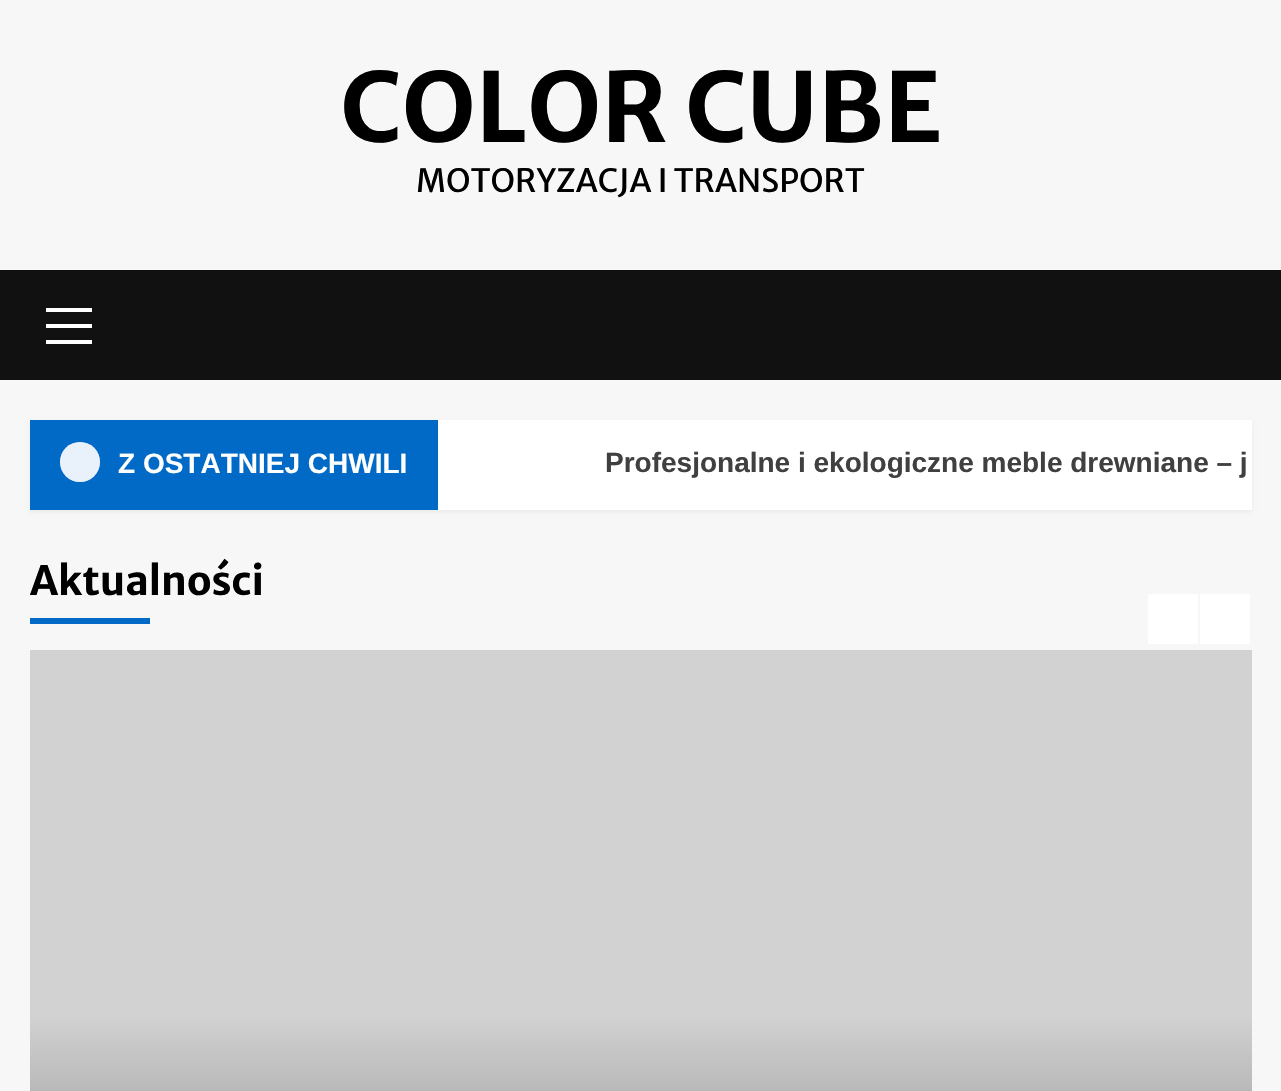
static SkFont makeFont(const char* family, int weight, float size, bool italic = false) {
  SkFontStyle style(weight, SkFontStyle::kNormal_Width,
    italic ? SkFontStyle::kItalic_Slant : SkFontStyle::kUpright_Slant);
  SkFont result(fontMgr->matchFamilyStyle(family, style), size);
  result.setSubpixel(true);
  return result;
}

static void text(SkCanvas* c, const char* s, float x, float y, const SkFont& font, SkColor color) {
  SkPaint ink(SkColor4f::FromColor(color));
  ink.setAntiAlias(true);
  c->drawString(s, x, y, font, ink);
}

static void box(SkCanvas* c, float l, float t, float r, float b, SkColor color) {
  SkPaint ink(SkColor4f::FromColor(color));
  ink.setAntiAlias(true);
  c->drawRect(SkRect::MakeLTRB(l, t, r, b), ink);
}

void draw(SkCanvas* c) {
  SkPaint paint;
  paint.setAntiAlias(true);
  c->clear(0xfff7f7f7);
  SkFont face1 = makeFont("Merriweather Sans", 700, 96);
  text(c, "COLOR CUBE", 340, 142, face1, 0xff000000);
  SkFont face2 = makeFont("Merriweather Sans", 400, 32);
  text(c, "MOTORYZACJA I TRANSPORT", 416, 192, face2, 0xff000000);
  box(c, 0, 270, 1281, 380, 0xff111111);
  box(c, 46, 324, 92, 328, 0xffffffff);
  box(c, 46, 308, 92, 312, 0xffffffff);
  box(c, 46, 340, 92, 344, 0xffffffff);
  paint.setColor(0x0d000000);
  paint.setMaskFilter(SkMaskFilter::MakeBlur(kNormal_SkBlurStyle, 2));
  c->drawRect(SkRect::MakeLTRB(30, 422, 1252, 512), paint);
  paint.setMaskFilter(nullptr);
  box(c, 438, 420, 1252, 510, 0xffffffff);
  box(c, 30, 420, 438, 510, 0xff0169c6);
  paint.setColor(0xffb3d2ee);
  c->drawCircle(80, 462, 20, paint);
  paint.setColor(0xb3ffffff);
  c->drawCircle(80, 462, 20, paint);
  SkFont face3 = makeFont("Liberation Sans", 700, 28);
  text(c, "Z OSTATNIEJ CHWILI", 118, 473, face3, 0xffffffff);
  text(c, "Profesjonalne i ekologiczne meble drewniane – j", 605, 472, face3, 0xff404040);
  SkFont face4 = makeFont("Merriweather Sans", 700, 40);
  text(c, "Aktualności", 30, 595, face4, 0xff000000);
  box(c, 30, 618, 150, 624, 0xff0169c6);
  box(c, 1148, 594, 1198, 644, 0xffffffff);
  box(c, 1200, 594, 1250, 644, 0xffffffff);
  {
    const SkColor colors[] = {0xffd2d2d2, 0xff202020};
    const float stops[] = {0.4f, 1};
    const SkPoint ends[] = {{641, 650}, {641, 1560}};
    paint.setShader(SkGradientShader::MakeLinear(ends, colors, stops, 2, SkTileMode::kClamp));
    paint.setAlpha(255);
  }
  c->drawRect(SkRect::MakeLTRB(30, 650, 1252, 1091), paint);
}
